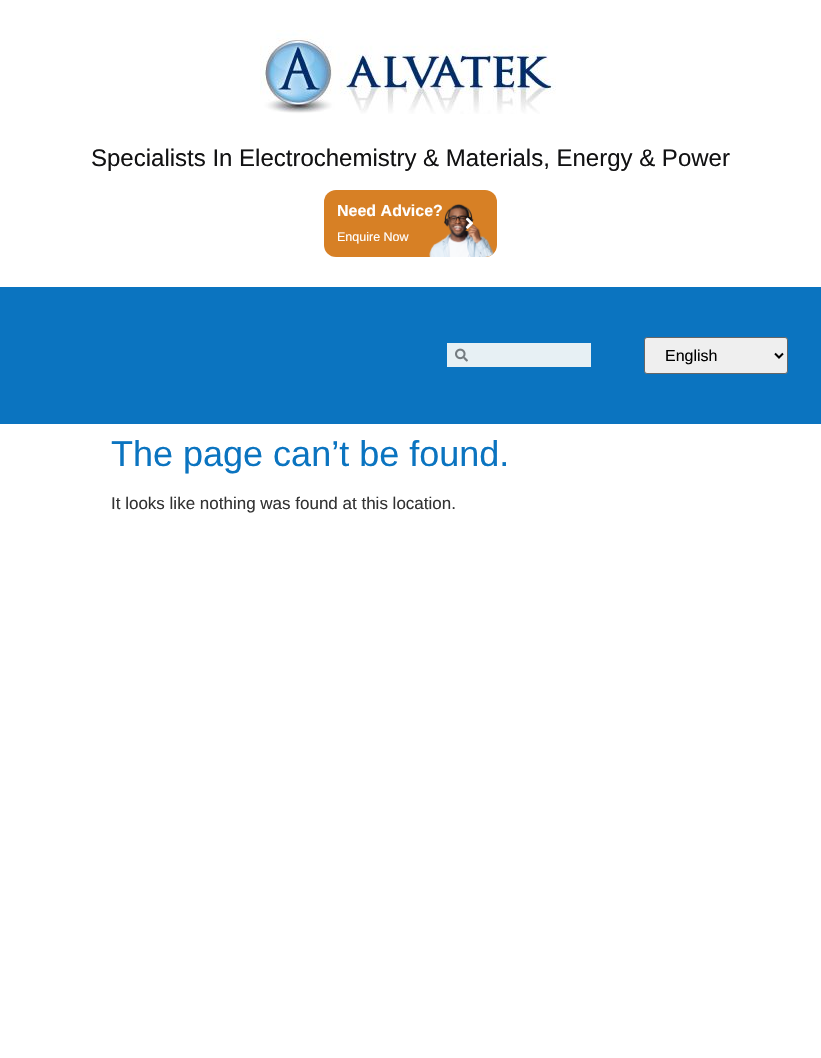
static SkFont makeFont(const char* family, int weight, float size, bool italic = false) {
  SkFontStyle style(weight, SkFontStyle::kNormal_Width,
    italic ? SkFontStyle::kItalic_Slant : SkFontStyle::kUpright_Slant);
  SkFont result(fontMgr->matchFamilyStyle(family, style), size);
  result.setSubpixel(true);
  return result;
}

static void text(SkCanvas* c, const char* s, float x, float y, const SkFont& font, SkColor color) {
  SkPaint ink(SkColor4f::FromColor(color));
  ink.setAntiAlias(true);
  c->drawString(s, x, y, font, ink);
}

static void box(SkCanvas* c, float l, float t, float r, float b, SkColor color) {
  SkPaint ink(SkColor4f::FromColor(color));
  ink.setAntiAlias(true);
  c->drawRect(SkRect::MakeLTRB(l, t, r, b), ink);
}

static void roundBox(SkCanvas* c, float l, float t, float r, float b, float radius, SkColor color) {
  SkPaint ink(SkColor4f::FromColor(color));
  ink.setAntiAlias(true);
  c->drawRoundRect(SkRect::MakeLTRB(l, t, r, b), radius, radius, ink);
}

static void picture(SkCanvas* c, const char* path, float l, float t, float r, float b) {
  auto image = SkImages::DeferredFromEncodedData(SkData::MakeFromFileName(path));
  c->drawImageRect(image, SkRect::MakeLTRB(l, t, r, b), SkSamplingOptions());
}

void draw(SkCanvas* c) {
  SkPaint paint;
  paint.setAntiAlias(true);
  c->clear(0xffffffff);
  picture(c, "img_01.png", 260, 30, 556, 114);
  SkFont face1 = makeFont("Liberation Sans", 400, 24);
  text(c, "Specialists In Electrochemistry & Materials, Energy & Power", 91, 166, face1, 0xff121213);
  roundBox(c, 324, 190, 497, 257, 12, 0xffd78025);
  picture(c, "img_02.png", 429, 204, 494, 257);
  SkFont face2 = makeFont("Liberation Sans", 700, 16);
  text(c, "Need Advice?", 337, 216, face2, 0xffffffff);
  SkFont face3 = makeFont("Liberation Sans", 400, 12.5f);
  text(c, "Enquire Now", 337, 241, face3, 0xffffffff);
  picture(c, "img_03.png", 465, 217, 474, 229);
  box(c, 0, 287, 821, 424, 0xff0b74c0);
  box(c, 447, 343, 591, 367, 0xffe7f0f4);
  picture(c, "img_04.png", 455, 348, 468, 362);
  paint.setColor(0xffefefef);
  c->drawRoundRect(SkRect::MakeLTRB(644.5f, 337.5f, 787.5f, 373.5f), 2.5f, 2.5f, paint);
  paint.setStyle(SkPaint::kStroke_Style);
  paint.setStrokeWidth(1);
  paint.setColor(0xff666666);
  c->drawRoundRect(SkRect::MakeLTRB(644.5f, 337.5f, 787.5f, 373.5f), 2.5f, 2.5f, paint);
  paint.setStrokeWidth(2);
  paint.setColor(0xff000000);
  c->drawPath(SkPathBuilder().moveTo(775, 353.5f).lineTo(779, 357.5f).lineTo(783, 353.5f).detach(), paint);
  SkFont face4 = makeFont("Liberation Sans", 400, 16);
  text(c, "English", 665, 361, face4, 0xff000000);
  SkFont face5 = makeFont("Liberation Sans", 400, 36);
  text(c, "The page can’t be found.", 111, 466, face5, 0xff0b74c0);
  SkFont face6 = makeFont("Liberation Sans", 400, 17);
  text(c, "It looks like nothing was found at this location.", 111, 509, face6, 0xff333333);
}
